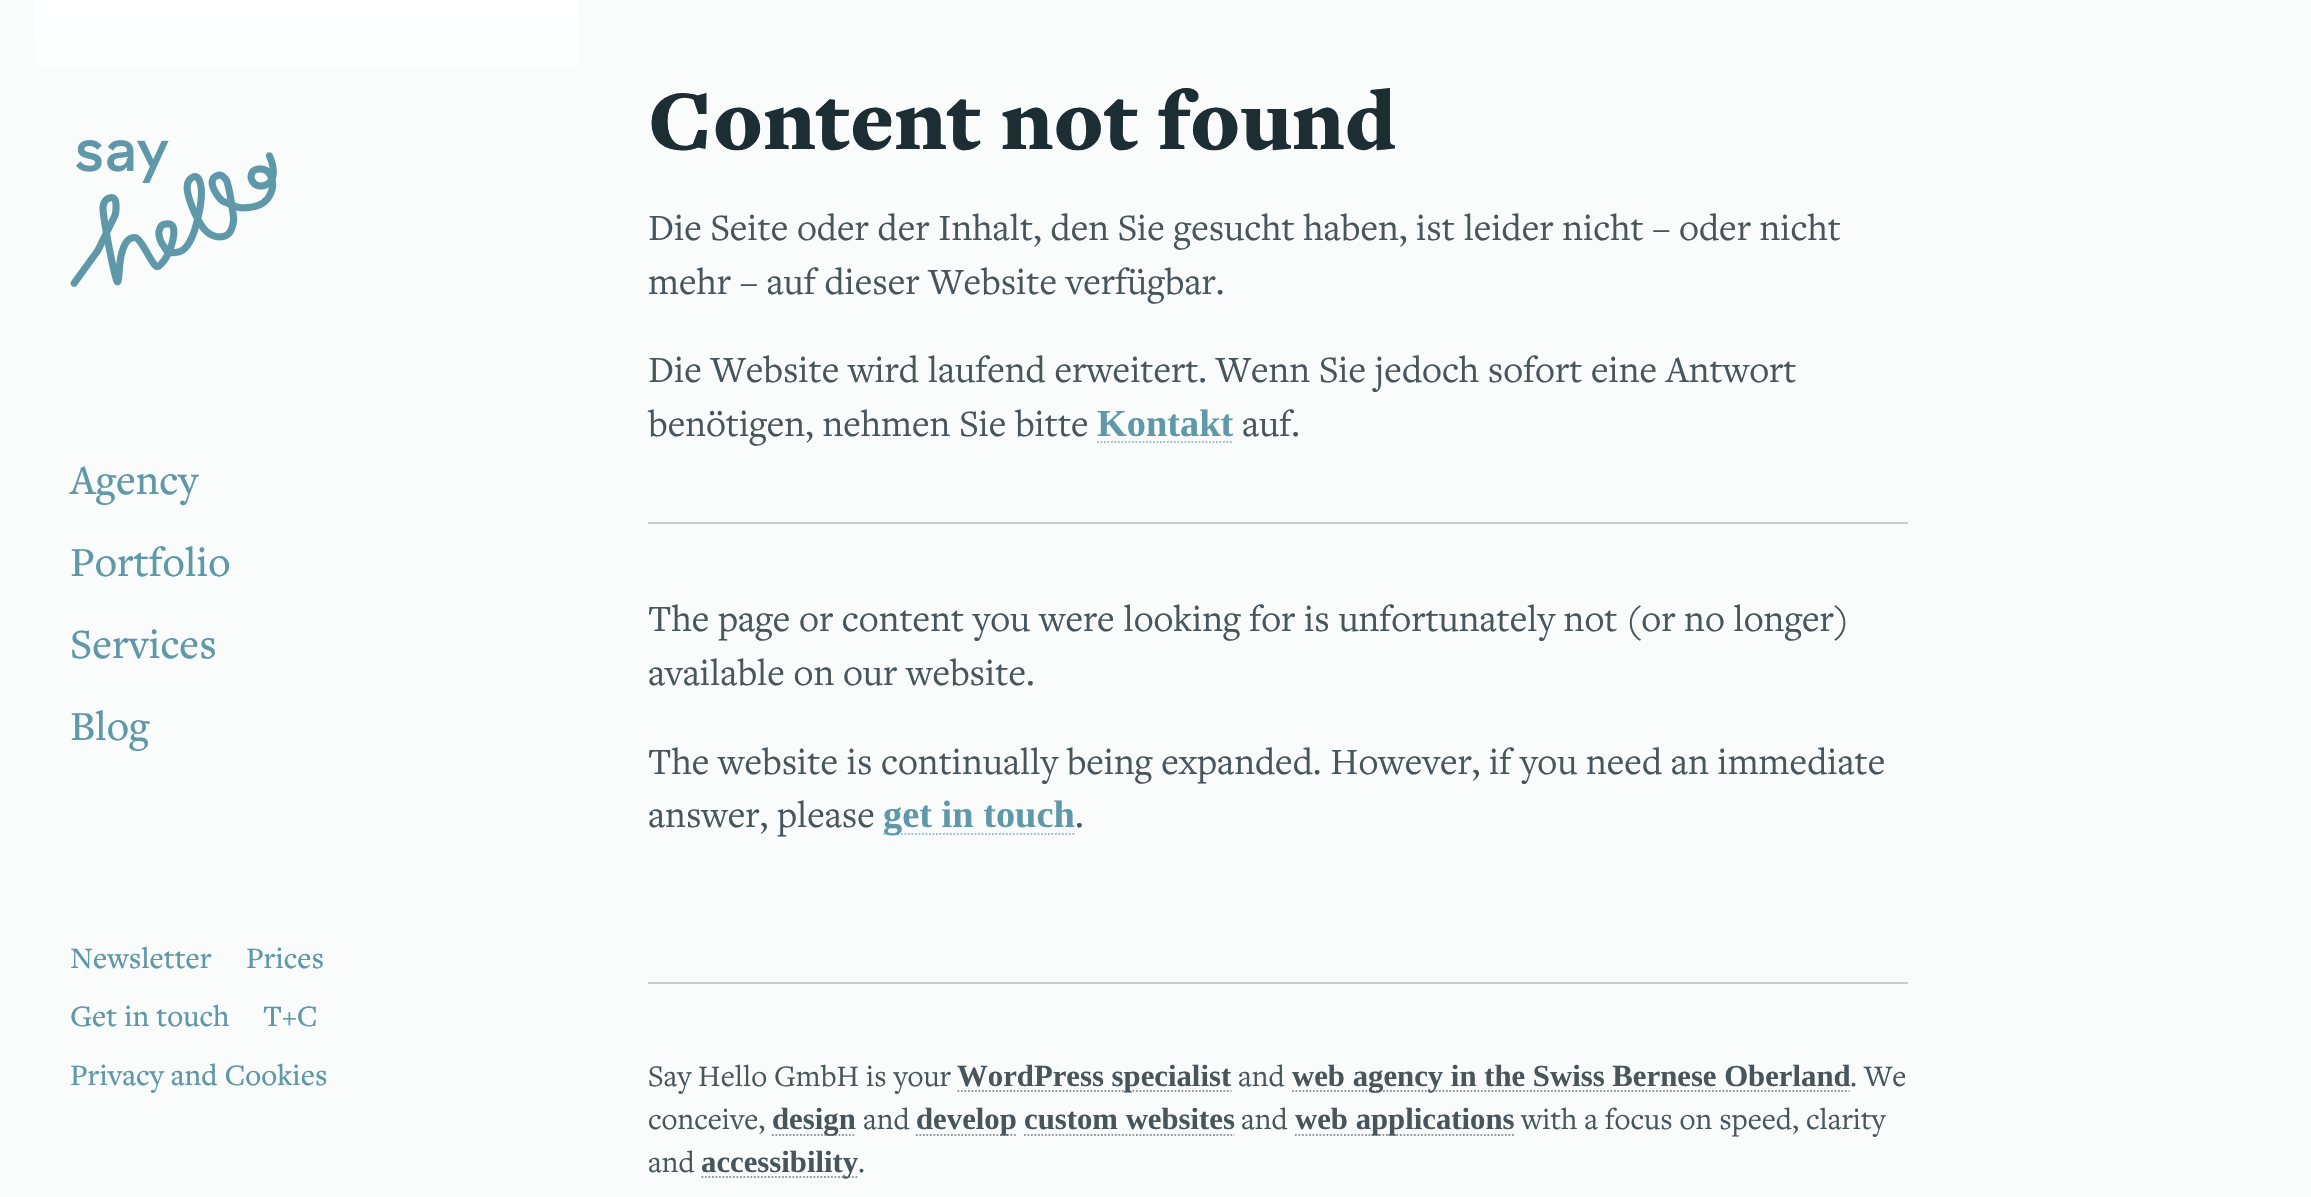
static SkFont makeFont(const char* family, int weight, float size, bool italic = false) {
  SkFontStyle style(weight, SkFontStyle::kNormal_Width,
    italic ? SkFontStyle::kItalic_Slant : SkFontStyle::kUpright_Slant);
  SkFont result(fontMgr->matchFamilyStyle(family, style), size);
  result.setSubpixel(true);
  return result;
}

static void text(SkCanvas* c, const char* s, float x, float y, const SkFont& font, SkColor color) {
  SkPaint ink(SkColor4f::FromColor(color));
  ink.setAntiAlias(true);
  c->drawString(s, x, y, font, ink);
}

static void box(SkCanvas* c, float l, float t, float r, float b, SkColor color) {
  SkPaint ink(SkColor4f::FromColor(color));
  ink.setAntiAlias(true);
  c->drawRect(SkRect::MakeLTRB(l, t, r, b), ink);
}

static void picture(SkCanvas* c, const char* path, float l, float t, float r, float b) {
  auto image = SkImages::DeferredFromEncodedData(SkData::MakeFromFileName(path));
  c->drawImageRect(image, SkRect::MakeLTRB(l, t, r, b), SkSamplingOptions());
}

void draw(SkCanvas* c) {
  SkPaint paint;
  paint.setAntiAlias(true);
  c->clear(0xfffafcfc);
  {
    const SkColor colors[] = {0xffffffff, 0xfffafefe};
    const float stops[] = {0, 0.11f};
    const SkPoint ends[] = {{1156, 0}, {1156, 1197}};
    paint.setShader(SkGradientShader::MakeLinear(ends, colors, stops, 2, SkTileMode::kClamp));
    paint.setAlpha(255);
  }
  c->drawRect(SkRect::MakeLTRB(35, 0, 578, 66), paint);
  picture(c, "img_01.png", 70, 140, 277, 287);
  SkFont face1 = makeFont("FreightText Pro", 500, 43);
  text(c, "Agency", 70, 494, face1, 0xff5f98a8);
  text(c, "Portfolio", 70, 576, face1, 0xff5f98a8);
  text(c, "Services", 70, 658, face1, 0xff5f98a8);
  text(c, "Blog", 70, 740, face1, 0xff5f98a8);
  SkFont face2 = makeFont("FreightText Pro", 500, 30.75f);
  text(c, "Newsletter", 70, 968, face2, 0xff5f98a8);
  text(c, "Prices", 246, 968, face2, 0xff5f98a8);
  text(c, "Get in touch", 70, 1026, face2, 0xff5f98a8);
  text(c, "T+C", 263, 1026, face2, 0xff5f98a8);
  text(c, "Privacy and Cookies", 70, 1085, face2, 0xff5f98a8);
  SkFont face3 = makeFont("FreightText Pro", 900, 87.6f);
  text(c, "Content not found", 648, 149, face3, 0xff1c2d33);
  SkFont face4 = makeFont("FreightText Pro", 400, 38.35f);
  text(c, "Die Seite oder der Inhalt, den Sie gesucht haben, ist leider nicht – oder nicht", 648, 240, face4, 0xff48565b);
  text(c, "mehr – auf dieser Website verfügbar.", 648, 294, face4, 0xff48565b);
  text(c, "Die Website wird laufend erweitert. Wenn Sie jedoch sofort eine Antwort", 648, 382, face4, 0xff48565b);
  text(c, "benötigen, nehmen Sie bitte", 648, 436, face4, 0xff48565b);
  SkFont face5 = makeFont("Liberation Serif", 700, 38.35f);
  text(c, "Kontakt", 1097, 436, face5, 0xff5f98a8);
  paint.setStyle(SkPaint::kStroke_Style);
  paint.setStrokeWidth(1.8f);
  paint.setShader(nullptr);
  paint.setColor(0xff9dc0ca);
  paint.setPathEffect(SkDashPathEffect::Make({{1.75f, 1.75f}}, 0));
  c->drawPath(SkPathBuilder().moveTo(1097, 442).lineTo(1233.5f, 442).detach(), paint);
  paint.setPathEffect(nullptr);
  text(c, "auf.", 1242, 436, face4, 0xff48565b);
  box(c, 648, 522, 1908, 524, 0xffcbcccc);
  text(c, "The page or content you were looking for is unfortunately not (or no longer)", 648, 631, face4, 0xff48565b);
  text(c, "available on our website.", 648, 685, face4, 0xff48565b);
  text(c, "The website is continually being expanded. However, if you need an immediate", 648, 774, face4, 0xff48565b);
  text(c, "answer, please", 648, 827, face4, 0xff48565b);
  paint.setPathEffect(SkDashPathEffect::Make({{1.75f, 1.75f}}, 0));
  c->drawPath(SkPathBuilder().moveTo(883.5f, 834).lineTo(1075, 834).detach(), paint);
  paint.setPathEffect(nullptr);
  text(c, "get in touch", 883, 827, face5, 0xff5f98a8);
  text(c, ".", 1075, 827, face4, 0xff48565b);
  box(c, 648, 982, 1908, 984, 0xffcbcccc);
  SkFont face6 = makeFont("FreightText Pro", 400, 30.75f);
  text(c, "Say Hello GmbH is your", 648, 1086, face6, 0xff48565b);
  paint.setColor(0xff8f999c);
  paint.setPathEffect(SkDashPathEffect::Make({{1.75f, 1.75f}}, 0));
  c->drawPath(SkPathBuilder().moveTo(957.5f, 1091).lineTo(1231.5f, 1091).detach(), paint);
  paint.setPathEffect(nullptr);
  SkFont face7 = makeFont("Liberation Serif", 700, 30.75f);
  text(c, "WordPress specialist", 957, 1086, face7, 0xff48565b);
  text(c, "and", 1238, 1086, face6, 0xff48565b);
  paint.setPathEffect(SkDashPathEffect::Make({{1.75f, 1.75f}}, 0));
  c->drawPath(SkPathBuilder().moveTo(1292, 1091).lineTo(1849.5f, 1091).detach(), paint);
  paint.setPathEffect(nullptr);
  text(c, "web agency in the Swiss Bernese Oberland", 1292, 1086, face7, 0xff48565b);
  text(c, ". We", 1850, 1086, face6, 0xff48565b);
  text(c, "conceive,", 648, 1129, face6, 0xff48565b);
  paint.setPathEffect(SkDashPathEffect::Make({{1.75f, 1.75f}}, 0));
  c->drawPath(SkPathBuilder().moveTo(772, 1135).lineTo(855.5f, 1135).detach(), paint);
  paint.setPathEffect(nullptr);
  text(c, "design", 772, 1129, face7, 0xff48565b);
  text(c, "and", 863, 1129, face6, 0xff48565b);
  paint.setPathEffect(SkDashPathEffect::Make({{1.75f, 1.75f}}, 0));
  c->drawPath(SkPathBuilder().moveTo(916, 1135).lineTo(1017, 1135).detach(), paint);
  paint.setPathEffect(nullptr);
  text(c, "develop", 916, 1129, face7, 0xff48565b);
  text(c, "custom websites", 1024, 1129, face7, 0xff48565b);
  paint.setPathEffect(SkDashPathEffect::Make({{1.75f, 1.75f}}, 0));
  c->drawPath(SkPathBuilder().moveTo(1024, 1135).lineTo(1234.5f, 1135).detach(), paint);
  paint.setPathEffect(nullptr);
  text(c, "and", 1241, 1129, face6, 0xff48565b);
  paint.setPathEffect(SkDashPathEffect::Make({{1.75f, 1.75f}}, 0));
  c->drawPath(SkPathBuilder().moveTo(1295, 1135).lineTo(1514.5f, 1135).detach(), paint);
  paint.setPathEffect(nullptr);
  text(c, "web applications", 1295, 1129, face7, 0xff48565b);
  text(c, "with a focus on speed, clarity", 1521, 1129, face6, 0xff48565b);
  text(c, "and", 648, 1172, face6, 0xff48565b);
  paint.setPathEffect(SkDashPathEffect::Make({{1.75f, 1.75f}}, 0));
  c->drawPath(SkPathBuilder().moveTo(701.5f, 1177).lineTo(858.5f, 1177).detach(), paint);
  paint.setPathEffect(nullptr);
  text(c, "accessibility", 701, 1172, face7, 0xff48565b);
  text(c, ".", 858, 1172, face6, 0xff48565b);
}
